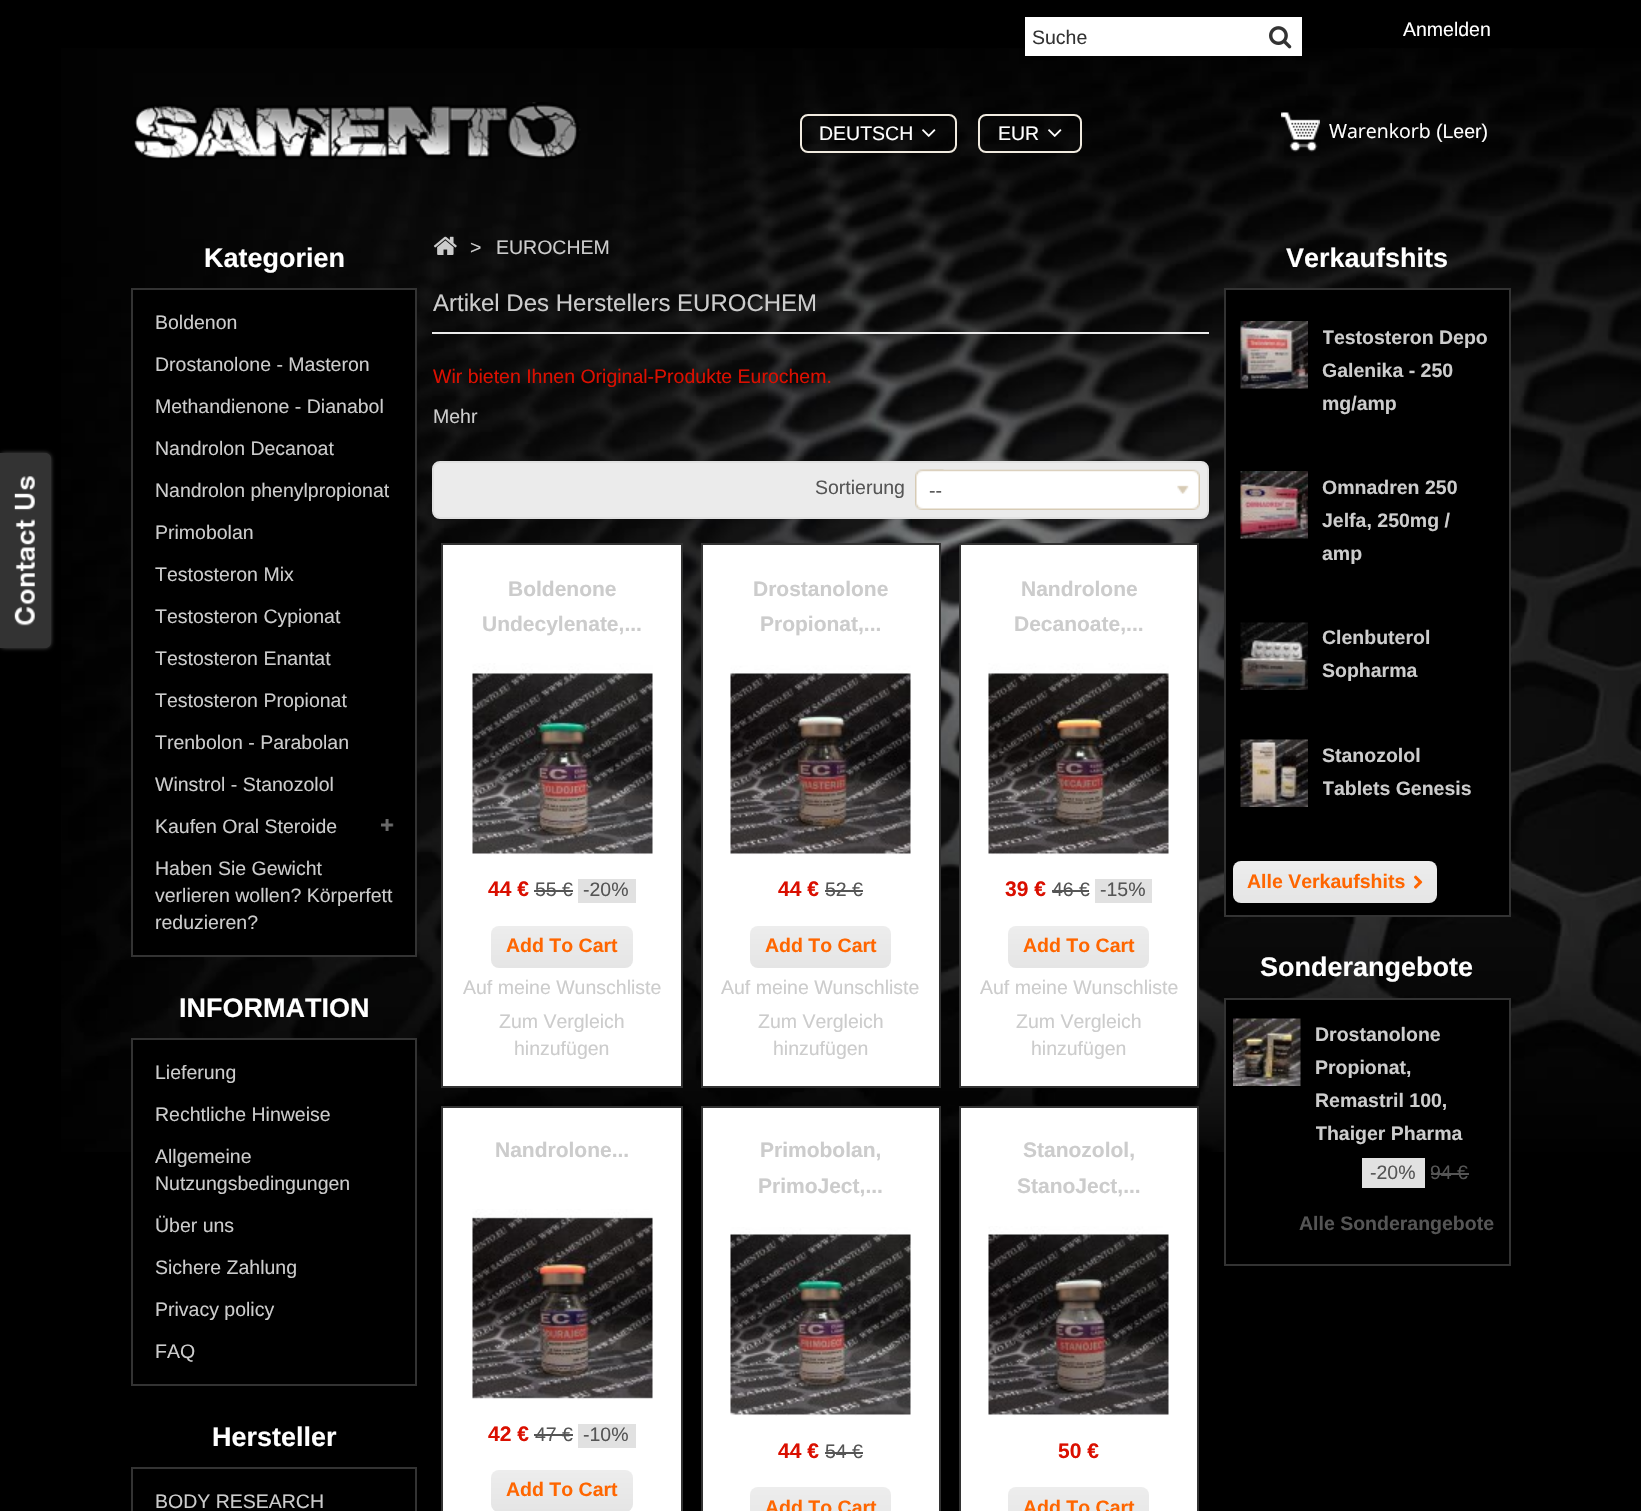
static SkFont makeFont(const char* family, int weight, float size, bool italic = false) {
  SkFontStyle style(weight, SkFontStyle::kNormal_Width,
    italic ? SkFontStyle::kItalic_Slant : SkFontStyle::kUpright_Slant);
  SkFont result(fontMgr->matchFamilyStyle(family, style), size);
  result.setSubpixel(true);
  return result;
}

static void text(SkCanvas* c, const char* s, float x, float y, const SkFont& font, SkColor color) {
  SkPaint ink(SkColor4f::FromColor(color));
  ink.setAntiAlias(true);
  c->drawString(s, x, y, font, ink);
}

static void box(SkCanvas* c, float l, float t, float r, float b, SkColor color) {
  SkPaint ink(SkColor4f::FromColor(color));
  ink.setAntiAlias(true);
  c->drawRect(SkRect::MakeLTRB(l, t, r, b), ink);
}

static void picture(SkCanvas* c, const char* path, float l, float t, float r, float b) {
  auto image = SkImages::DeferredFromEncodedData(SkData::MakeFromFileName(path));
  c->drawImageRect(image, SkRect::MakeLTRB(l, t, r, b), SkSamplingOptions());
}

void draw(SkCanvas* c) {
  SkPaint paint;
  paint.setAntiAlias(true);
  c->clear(0xff000000);
  picture(c, "img_01.png", 61, 48, 1641, 1152);
  paint.setColor(0x99808080);
  paint.setMaskFilter(SkMaskFilter::MakeBlur(kNormal_SkBlurStyle, 2));
  c->drawRoundRect(SkRect::MakeLTRB(-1, 453, 51, 648), 6, 6, paint);
  paint.setMaskFilter(nullptr);
  paint.setColor(0xff333333);
  c->drawPath(SkPathBuilder().moveTo(-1, 453).lineTo(45, 453).cubicTo(48.5f, 453, 51, 455.5f, 51, 459).lineTo(51, 642).cubicTo(51, 645.5f, 48.5f, 648, 45, 648).lineTo(-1, 648).close().detach(), paint);
  picture(c, "img_02.png", 14, 476, 35, 626);
  box(c, 1025, 17, 1302, 56, 0xffffffff);
  SkFont face1 = makeFont("Liberation Sans", 400, 19.5f);
  text(c, "Suche", 1032, 44, face1, 0xff333333);
  picture(c, "img_03.png", 1269, 26, 1292, 49);
  text(c, "Anmelden", 1403, 36, face1, 0xffffffff);
  picture(c, "img_04.png", 134, 102, 581, 160);
  paint.setStyle(SkPaint::kStroke_Style);
  paint.setStrokeWidth(2);
  paint.setColor(0xfff1ebe0);
  c->drawRoundRect(SkRect::MakeLTRB(801, 115, 956, 152), 7, 7, paint);
  text(c, "DEUTSCH", 819, 140, face1, 0xffffffff);
  picture(c, "img_05.png", 922, 129, 936, 137);
  c->drawRoundRect(SkRect::MakeLTRB(979, 115, 1081, 152), 7, 7, paint);
  text(c, "EUR", 998, 140, face1, 0xffffffff);
  picture(c, "img_06.png", 1048, 129, 1062, 137);
  picture(c, "img_07.png", 1281, 112, 1320, 152);
  SkFont face2 = makeFont("Open Sans", 400, 19.5f);
  text(c, "Warenkorb", 1329, 138, face2, 0xffffffff);
  text(c, "(Leer)", 1436, 138, face1, 0xffffffff);
  SkFont face3 = makeFont("Liberation Sans", 700, 27);
  text(c, "Kategorien", 204, 267, face3, 0xffffffff);
  paint.setStyle(SkPaint::kFill_Style);
  paint.setColor(0xff000000);
  c->drawRect(SkRect::MakeLTRB(132, 289, 416, 956), paint);
  paint.setStyle(SkPaint::kStroke_Style);
  paint.setColor(0xff333333);
  c->drawRect(SkRect::MakeLTRB(132, 289, 416, 956), paint);
  text(c, "Boldenon", 155, 329, face1, 0xffcccccc);
  text(c, "Drostanolone - Masteron", 155, 371, face1, 0xffcccccc);
  text(c, "Methandienone - Dianabol", 155, 413, face1, 0xffcccccc);
  text(c, "Nandrolon Decanoat", 155, 455, face1, 0xffcccccc);
  text(c, "Nandrolon phenylpropionat", 155, 497, face1, 0xffcccccc);
  text(c, "Primobolan", 155, 539, face1, 0xffcccccc);
  text(c, "Testosteron Mix", 155, 581, face1, 0xffcccccc);
  text(c, "Testosteron Cypionat", 155, 623, face1, 0xffcccccc);
  text(c, "Testosteron Enantat", 155, 665, face1, 0xffcccccc);
  text(c, "Testosteron Propionat", 155, 707, face1, 0xffcccccc);
  text(c, "Trenbolon - Parabolan", 155, 749, face1, 0xffcccccc);
  text(c, "Winstrol - Stanozolol", 155, 791, face1, 0xffcccccc);
  text(c, "Kaufen Oral Steroide", 155, 833, face1, 0xffcccccc);
  picture(c, "img_08.png", 381, 819, 394, 831);
  text(c, "Haben Sie Gewicht", 155, 875, face1, 0xffcccccc);
  text(c, "verlieren wollen? Körperfett", 155, 902, face1, 0xffcccccc);
  text(c, "reduzieren?", 155, 929, face1, 0xffcccccc);
  text(c, "INFORMATION", 179, 1017, face3, 0xffffffff);
  box(c, 133, 1040, 415, 1152, 0xff000000);
  c->drawRect(SkRect::MakeLTRB(132, 1039, 416, 1385), paint);
  text(c, "Lieferung", 155, 1079, face1, 0xffcccccc);
  text(c, "Rechtliche Hinweise", 155, 1121, face1, 0xffcccccc);
  text(c, "Allgemeine", 155, 1163, face1, 0xffcccccc);
  text(c, "Nutzungsbedingungen", 155, 1190, face1, 0xffcccccc);
  text(c, "Über uns", 155, 1232, face1, 0xffcccccc);
  text(c, "Sichere Zahlung", 155, 1274, face1, 0xffcccccc);
  text(c, "Privacy policy", 155, 1316, face1, 0xffcccccc);
  text(c, "FAQ", 155, 1358, face1, 0xffcccccc);
  text(c, "Hersteller", 212, 1446, face3, 0xffffffff);
  c->drawRect(SkRect::MakeLTRB(132, 1468, 416, 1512), paint);
  text(c, "BODY RESEARCH", 155, 1508, face1, 0xffcccccc);
  picture(c, "img_09.png", 433, 236, 457, 255);
  text(c, ">", 470, 254, face1, 0xffcccccc);
  text(c, "EUROCHEM", 496, 254, face1, 0xffcccccc);
  SkFont face4 = makeFont("Liberation Sans", 400, 24);
  text(c, "Artikel Des Herstellers EUROCHEM", 433, 311, face4, 0xffcccccc);
  box(c, 432, 332, 1209, 334, 0xffebebeb);
  text(c, "Wir bieten Ihnen Original-Produkte Eurochem.", 433, 383, face1, 0xffda0f00);
  text(c, "Mehr", 433, 423, face1, 0xffcccccc);
  paint.setStyle(SkPaint::kFill_Style);
  paint.setColor(0xffebebeb);
  c->drawRoundRect(SkRect::MakeLTRB(433, 462, 1208, 518), 7, 7, paint);
  paint.setStyle(SkPaint::kStroke_Style);
  paint.setColor(0xffe1e1e1);
  c->drawRoundRect(SkRect::MakeLTRB(433, 462, 1208, 518), 7, 7, paint);
  text(c, "Sortierung", 815, 494, face1, 0xff555555);
  picture(c, "img_10.png", 915, 469, 944, 510);
  picture(c, "img_11.png", 930, 469, 1200, 510);
  text(c, "--", 929, 497, face1, 0xff555555);
  paint.setStyle(SkPaint::kFill_Style);
  paint.setColor(0xffffffff);
  c->drawRect(SkRect::MakeLTRB(442, 544, 682, 1087), paint);
  paint.setStyle(SkPaint::kStroke_Style);
  paint.setColor(0xff333333);
  c->drawRect(SkRect::MakeLTRB(442, 544, 682, 1087), paint);
  SkFont face5 = makeFont("Liberation Sans", 700, 21);
  text(c, "Boldenone", 508, 596, face5, 0xffcccccc);
  text(c, "Undecylenate,...", 482, 631, face5, 0xffcccccc);
  picture(c, "img_12.png", 472, 663, 653, 855);
  text(c, "44 €", 488, 896, face5, 0xffda0f00);
  text(c, "55 €", 535, 896, face1, 0xff555555);
  box(c, 534, 890, 573, 892, 0xff555555);
  box(c, 578, 879, 636, 903, 0xffe1e1e1);
  text(c, "-20%", 583, 896, face1, 0xff555555);
  paint.setStyle(SkPaint::kFill_Style);
  {
    const SkColor colors[] = {0xffededed, 0xffe5e5e5};
    const float stops[] = {0, 1};
    const SkPoint ends[] = {{562, 926}, {562, 968}};
    paint.setShader(SkGradientShader::MakeLinear(ends, colors, stops, 2, SkTileMode::kClamp));
    paint.setAlpha(255);
  }
  c->drawRoundRect(SkRect::MakeLTRB(491, 926, 633, 968), 8, 8, paint);
  SkFont face6 = makeFont("Liberation Sans", 700, 19.5f);
  text(c, "Add To Cart", 506, 952, face6, 0xffff6600);
  text(c, "Auf meine Wunschliste", 463, 994, face1, 0xffcccccc);
  text(c, "Zum Vergleich", 499, 1028, face1, 0xffcccccc);
  text(c, "hinzufügen", 514, 1055, face1, 0xffcccccc);
  paint.setShader(nullptr);
  paint.setColor(0xffffffff);
  c->drawRect(SkRect::MakeLTRB(702, 544, 940, 1087), paint);
  paint.setStyle(SkPaint::kStroke_Style);
  paint.setColor(0xff333333);
  c->drawRect(SkRect::MakeLTRB(702, 544, 940, 1087), paint);
  text(c, "Drostanolone", 753, 596, face5, 0xffcccccc);
  text(c, "Propionat,...", 760, 631, face5, 0xffcccccc);
  picture(c, "img_13.png", 730, 665, 911, 855);
  text(c, "44 €", 778, 896, face5, 0xffda0f00);
  text(c, "52 €", 825, 896, face1, 0xff555555);
  box(c, 825, 890, 863, 892, 0xff555555);
  paint.setStyle(SkPaint::kFill_Style);
  {
    const SkColor colors[] = {0xffededed, 0xffe5e5e5};
    const float stops[] = {0, 1};
    const SkPoint ends[] = {{821, 926}, {821, 968}};
    paint.setShader(SkGradientShader::MakeLinear(ends, colors, stops, 2, SkTileMode::kClamp));
    paint.setAlpha(255);
  }
  c->drawRoundRect(SkRect::MakeLTRB(750, 926, 891, 968), 8, 8, paint);
  text(c, "Add To Cart", 765, 952, face6, 0xffff6600);
  text(c, "Auf meine Wunschliste", 721, 994, face1, 0xffcccccc);
  text(c, "Zum Vergleich", 758, 1028, face1, 0xffcccccc);
  text(c, "hinzufügen", 773, 1055, face1, 0xffcccccc);
  paint.setShader(nullptr);
  paint.setColor(0xffffffff);
  c->drawRect(SkRect::MakeLTRB(960, 544, 1198, 1087), paint);
  paint.setStyle(SkPaint::kStroke_Style);
  paint.setColor(0xff333333);
  c->drawRect(SkRect::MakeLTRB(960, 544, 1198, 1087), paint);
  text(c, "Nandrolone", 1021, 596, face5, 0xffcccccc);
  text(c, "Decanoate,...", 1014, 631, face5, 0xffcccccc);
  picture(c, "img_14.png", 988, 663, 1169, 855);
  text(c, "39 €", 1005, 896, face5, 0xffda0f00);
  text(c, "46 €", 1052, 896, face1, 0xff555555);
  box(c, 1052, 890, 1089, 892, 0xff555555);
  box(c, 1095, 879, 1152, 903, 0xffe1e1e1);
  text(c, "-15%", 1100, 896, face1, 0xff555555);
  paint.setStyle(SkPaint::kFill_Style);
  {
    const SkColor colors[] = {0xffededed, 0xffe5e5e5};
    const float stops[] = {0, 1};
    const SkPoint ends[] = {{1079, 926}, {1079, 968}};
    paint.setShader(SkGradientShader::MakeLinear(ends, colors, stops, 2, SkTileMode::kClamp));
    paint.setAlpha(255);
  }
  c->drawRoundRect(SkRect::MakeLTRB(1008, 926, 1149, 968), 8, 8, paint);
  text(c, "Add To Cart", 1023, 952, face6, 0xffff6600);
  text(c, "Auf meine Wunschliste", 980, 994, face1, 0xffcccccc);
  text(c, "Zum Vergleich", 1016, 1028, face1, 0xffcccccc);
  text(c, "hinzufügen", 1031, 1055, face1, 0xffcccccc);
  paint.setShader(nullptr);
  paint.setColor(0xffffffff);
  c->drawRect(SkRect::MakeLTRB(442, 1107, 682, 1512), paint);
  paint.setStyle(SkPaint::kStroke_Style);
  paint.setColor(0xff333333);
  c->drawRect(SkRect::MakeLTRB(442, 1107, 682, 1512), paint);
  text(c, "Nandrolone...", 495, 1157, face5, 0xffcccccc);
  picture(c, "img_15.png", 472, 1209, 653, 1400);
  text(c, "42 €", 488, 1441, face5, 0xffda0f00);
  text(c, "47 €", 535, 1441, face1, 0xff555555);
  box(c, 534, 1434, 573, 1436, 0xff555555);
  box(c, 578, 1424, 636, 1448, 0xffe1e1e1);
  text(c, "-10%", 583, 1441, face1, 0xff555555);
  paint.setStyle(SkPaint::kFill_Style);
  {
    const SkColor colors[] = {0xffededed, 0xffe5e5e5};
    const float stops[] = {0, 1};
    const SkPoint ends[] = {{562, 1470}, {562, 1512}};
    paint.setShader(SkGradientShader::MakeLinear(ends, colors, stops, 2, SkTileMode::kClamp));
    paint.setAlpha(255);
  }
  c->drawRoundRect(SkRect::MakeLTRB(491, 1470, 633, 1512), 8, 8, paint);
  text(c, "Add To Cart", 506, 1496, face6, 0xffff6600);
  paint.setShader(nullptr);
  paint.setColor(0xffffffff);
  c->drawRect(SkRect::MakeLTRB(702, 1107, 940, 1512), paint);
  paint.setStyle(SkPaint::kStroke_Style);
  paint.setColor(0xff333333);
  c->drawRect(SkRect::MakeLTRB(702, 1107, 940, 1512), paint);
  text(c, "Primobolan,", 760, 1157, face5, 0xffcccccc);
  text(c, "PrimoJect,...", 758, 1193, face5, 0xffcccccc);
  picture(c, "img_16.png", 730, 1227, 911, 1416);
  text(c, "44 €", 778, 1458, face5, 0xffda0f00);
  text(c, "54 €", 825, 1458, face1, 0xff555555);
  box(c, 825, 1452, 863, 1454, 0xff555555);
  paint.setStyle(SkPaint::kFill_Style);
  {
    const SkColor colors[] = {0xffededed, 0xffe5e5e5};
    const float stops[] = {0, 1};
    const SkPoint ends[] = {{821, 1487}, {821, 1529}};
    paint.setShader(SkGradientShader::MakeLinear(ends, colors, stops, 2, SkTileMode::kClamp));
    paint.setAlpha(255);
  }
  c->drawRoundRect(SkRect::MakeLTRB(750, 1487, 891, 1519), 8, 8, paint);
  text(c, "Add To Cart", 765, 1514, face6, 0xffff6600);
  paint.setShader(nullptr);
  paint.setColor(0xffffffff);
  c->drawRect(SkRect::MakeLTRB(960, 1107, 1198, 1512), paint);
  paint.setStyle(SkPaint::kStroke_Style);
  paint.setColor(0xff333333);
  c->drawRect(SkRect::MakeLTRB(960, 1107, 1198, 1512), paint);
  text(c, "Stanozolol,", 1023, 1157, face5, 0xffcccccc);
  text(c, "StanoJect,...", 1017, 1193, face5, 0xffcccccc);
  picture(c, "img_17.png", 988, 1226, 1169, 1416);
  text(c, "50 €", 1058, 1458, face5, 0xffda0f00);
  paint.setStyle(SkPaint::kFill_Style);
  {
    const SkColor colors[] = {0xffededed, 0xffe5e5e5};
    const float stops[] = {0, 1};
    const SkPoint ends[] = {{1079, 1487}, {1079, 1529}};
    paint.setShader(SkGradientShader::MakeLinear(ends, colors, stops, 2, SkTileMode::kClamp));
    paint.setAlpha(255);
  }
  c->drawRoundRect(SkRect::MakeLTRB(1008, 1487, 1149, 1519), 8, 8, paint);
  text(c, "Add To Cart", 1023, 1514, face6, 0xffff6600);
  text(c, "Verkaufshits", 1286, 267, face3, 0xffffffff);
  paint.setShader(nullptr);
  paint.setColor(0xff000000);
  c->drawRect(SkRect::MakeLTRB(1225, 289, 1510, 916), paint);
  paint.setStyle(SkPaint::kStroke_Style);
  paint.setColor(0xff333333);
  c->drawRect(SkRect::MakeLTRB(1225, 289, 1510, 916), paint);
  picture(c, "img_18.png", 1240, 321, 1308, 389);
  c->save();
  c->clipRect(SkRect::MakeLTRB(1323, 321, 1494, 456));
  text(c, "Testosteron Depo", 1322, 344, face6, 0xffcccccc);
  c->restore();
  text(c, "Galenika - 250", 1322, 377, face6, 0xffcccccc);
  text(c, "mg/amp", 1322, 410, face6, 0xffcccccc);
  picture(c, "img_19.png", 1240, 471, 1308, 539);
  text(c, "Omnadren 250", 1322, 494, face6, 0xffcccccc);
  text(c, "Jelfa, 250mg /", 1322, 527, face6, 0xffcccccc);
  text(c, "amp", 1322, 560, face6, 0xffcccccc);
  picture(c, "img_20.png", 1240, 622, 1308, 690);
  text(c, "Clenbuterol", 1322, 644, face6, 0xffcccccc);
  text(c, "Sopharma", 1322, 677, face6, 0xffcccccc);
  picture(c, "img_21.png", 1240, 739, 1308, 807);
  text(c, "Stanozolol", 1322, 762, face6, 0xffcccccc);
  c->save();
  c->clipRect(SkRect::MakeLTRB(1323, 740, 1494, 842));
  text(c, "Tablets Genesis", 1322, 795, face6, 0xffcccccc);
  c->restore();
  paint.setStyle(SkPaint::kFill_Style);
  {
    const SkColor colors[] = {0xffededed, 0xffe5e5e5};
    const float stops[] = {0, 1};
    const SkPoint ends[] = {{1335, 861}, {1335, 903}};
    paint.setShader(SkGradientShader::MakeLinear(ends, colors, stops, 2, SkTileMode::kClamp));
    paint.setAlpha(255);
  }
  c->drawRoundRect(SkRect::MakeLTRB(1233, 861, 1437, 903), 8, 8, paint);
  text(c, "Alle Verkaufshits", 1247, 888, face6, 0xffff6600);
  picture(c, "img_22.png", 1414, 875, 1423, 889);
  text(c, "Sonderangebote", 1260, 976, face3, 0xffffffff);
  box(c, 1226, 1000, 1509, 1152, 0xff000000);
  paint.setStyle(SkPaint::kStroke_Style);
  paint.setShader(nullptr);
  paint.setColor(0xff333333);
  c->drawRect(SkRect::MakeLTRB(1225, 999, 1510, 1265), paint);
  picture(c, "img_23.png", 1233, 1018, 1301, 1086);
  text(c, "Drostanolone", 1315, 1041, face6, 0xffcccccc);
  text(c, "Propionat,", 1315, 1074, face6, 0xffcccccc);
  text(c, "Remastril 100,", 1315, 1107, face6, 0xffcccccc);
  c->save();
  c->clipRect(SkRect::MakeLTRB(1316, 1019, 1502, 1188));
  text(c, "Thaiger Pharma", 1315, 1140, face6, 0xffcccccc);
  c->restore();
  box(c, 1362, 1158, 1425, 1188, 0xffe1e1e1);
  text(c, "-20%", 1370, 1179, face1, 0xff555555);
  text(c, "94 €", 1430, 1179, face1, 0xff555555);
  box(c, 1431, 1173, 1469, 1175, 0xff555555);
  text(c, "Alle Sonderangebote", 1299, 1230, face6, 0xff555555);
}
